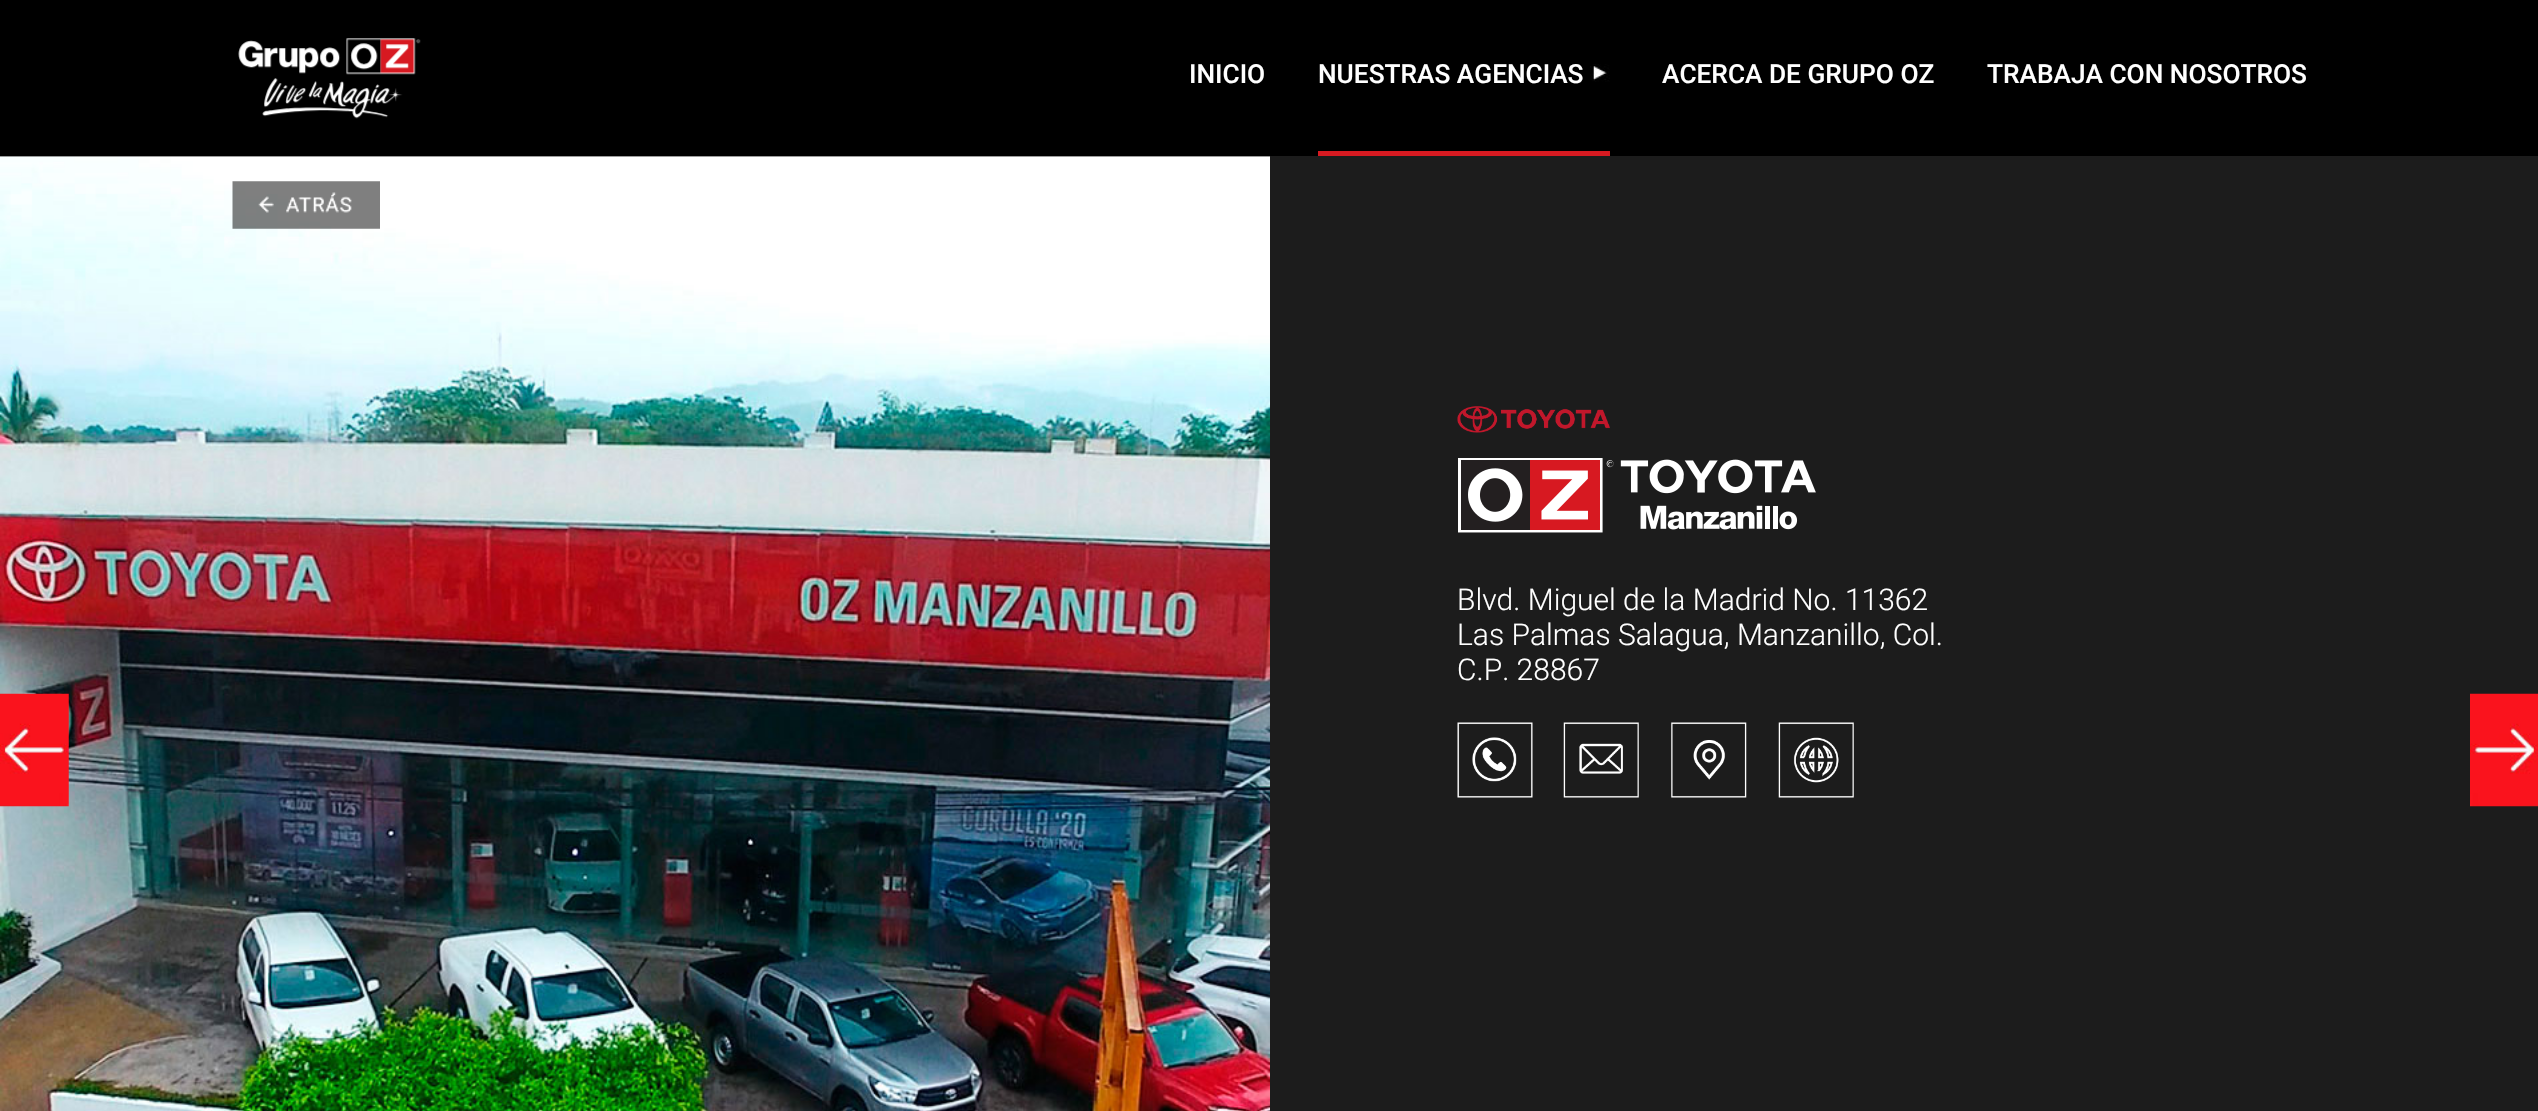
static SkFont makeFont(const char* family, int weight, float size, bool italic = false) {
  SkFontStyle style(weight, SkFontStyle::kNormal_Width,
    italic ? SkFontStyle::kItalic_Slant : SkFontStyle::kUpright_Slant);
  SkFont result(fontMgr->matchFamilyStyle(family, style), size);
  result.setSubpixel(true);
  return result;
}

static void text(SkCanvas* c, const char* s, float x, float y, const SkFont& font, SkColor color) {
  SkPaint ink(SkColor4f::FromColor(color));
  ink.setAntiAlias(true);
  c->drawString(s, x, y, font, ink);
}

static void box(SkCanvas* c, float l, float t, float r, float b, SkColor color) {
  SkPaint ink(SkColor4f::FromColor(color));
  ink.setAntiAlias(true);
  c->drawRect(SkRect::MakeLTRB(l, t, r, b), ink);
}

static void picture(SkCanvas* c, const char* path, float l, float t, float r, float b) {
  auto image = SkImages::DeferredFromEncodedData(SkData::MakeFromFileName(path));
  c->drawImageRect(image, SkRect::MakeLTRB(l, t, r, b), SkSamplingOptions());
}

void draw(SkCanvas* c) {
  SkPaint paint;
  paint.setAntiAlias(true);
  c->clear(0xff1c1c1c);
  box(c, 0, 0, 2538, 156, 0xff000000);
  picture(c, "img_01.png", 238, 38, 421, 119);
  SkFont face1 = makeFont("Roboto", 500, 26.25f);
  text(c, "INICIO", 1189, 83, face1, 0xffffffff);
  box(c, 1318, 151, 1610, 156, 0xffd71a21);
  text(c, "NUESTRAS AGENCIAS", 1318, 83, face1, 0xffffffff);
  picture(c, "img_02.png", 1590, 64, 1610, 82);
  text(c, "ACERCA DE GRUPO OZ", 1662, 83, face1, 0xffffffff);
  text(c, "TRABAJA CON NOSOTROS", 1987, 83, face1, 0xffffffff);
  picture(c, "img_03.png", 0, 156, 1270, 1111);
  picture(c, "img_04.png", 232, 181, 380, 229);
  picture(c, "img_05.png", 1457, 406, 1610, 433);
  picture(c, "img_06.png", 1458, 458, 1816, 533);
  SkFont face2 = makeFont("Roboto", 300, 30);
  text(c, "Blvd. Miguel de la Madrid No. 11362", 1457, 610, face2, 0xffffffff);
  text(c, "Las Palmas Salagua, Manzanillo, Col.", 1457, 645, face2, 0xffffffff);
  text(c, "C.P. 28867", 1457, 680, face2, 0xffffffff);
  picture(c, "img_07.png", 1457, 722, 1533, 798);
  picture(c, "img_08.png", 1563, 722, 1639, 798);
  picture(c, "img_09.png", 1671, 722, 1747, 798);
  picture(c, "img_10.png", 1778, 722, 1854, 798);
  picture(c, "img_11.png", 0, 693, 69, 807);
  picture(c, "img_12.png", 2470, 693, 2538, 807);
}
